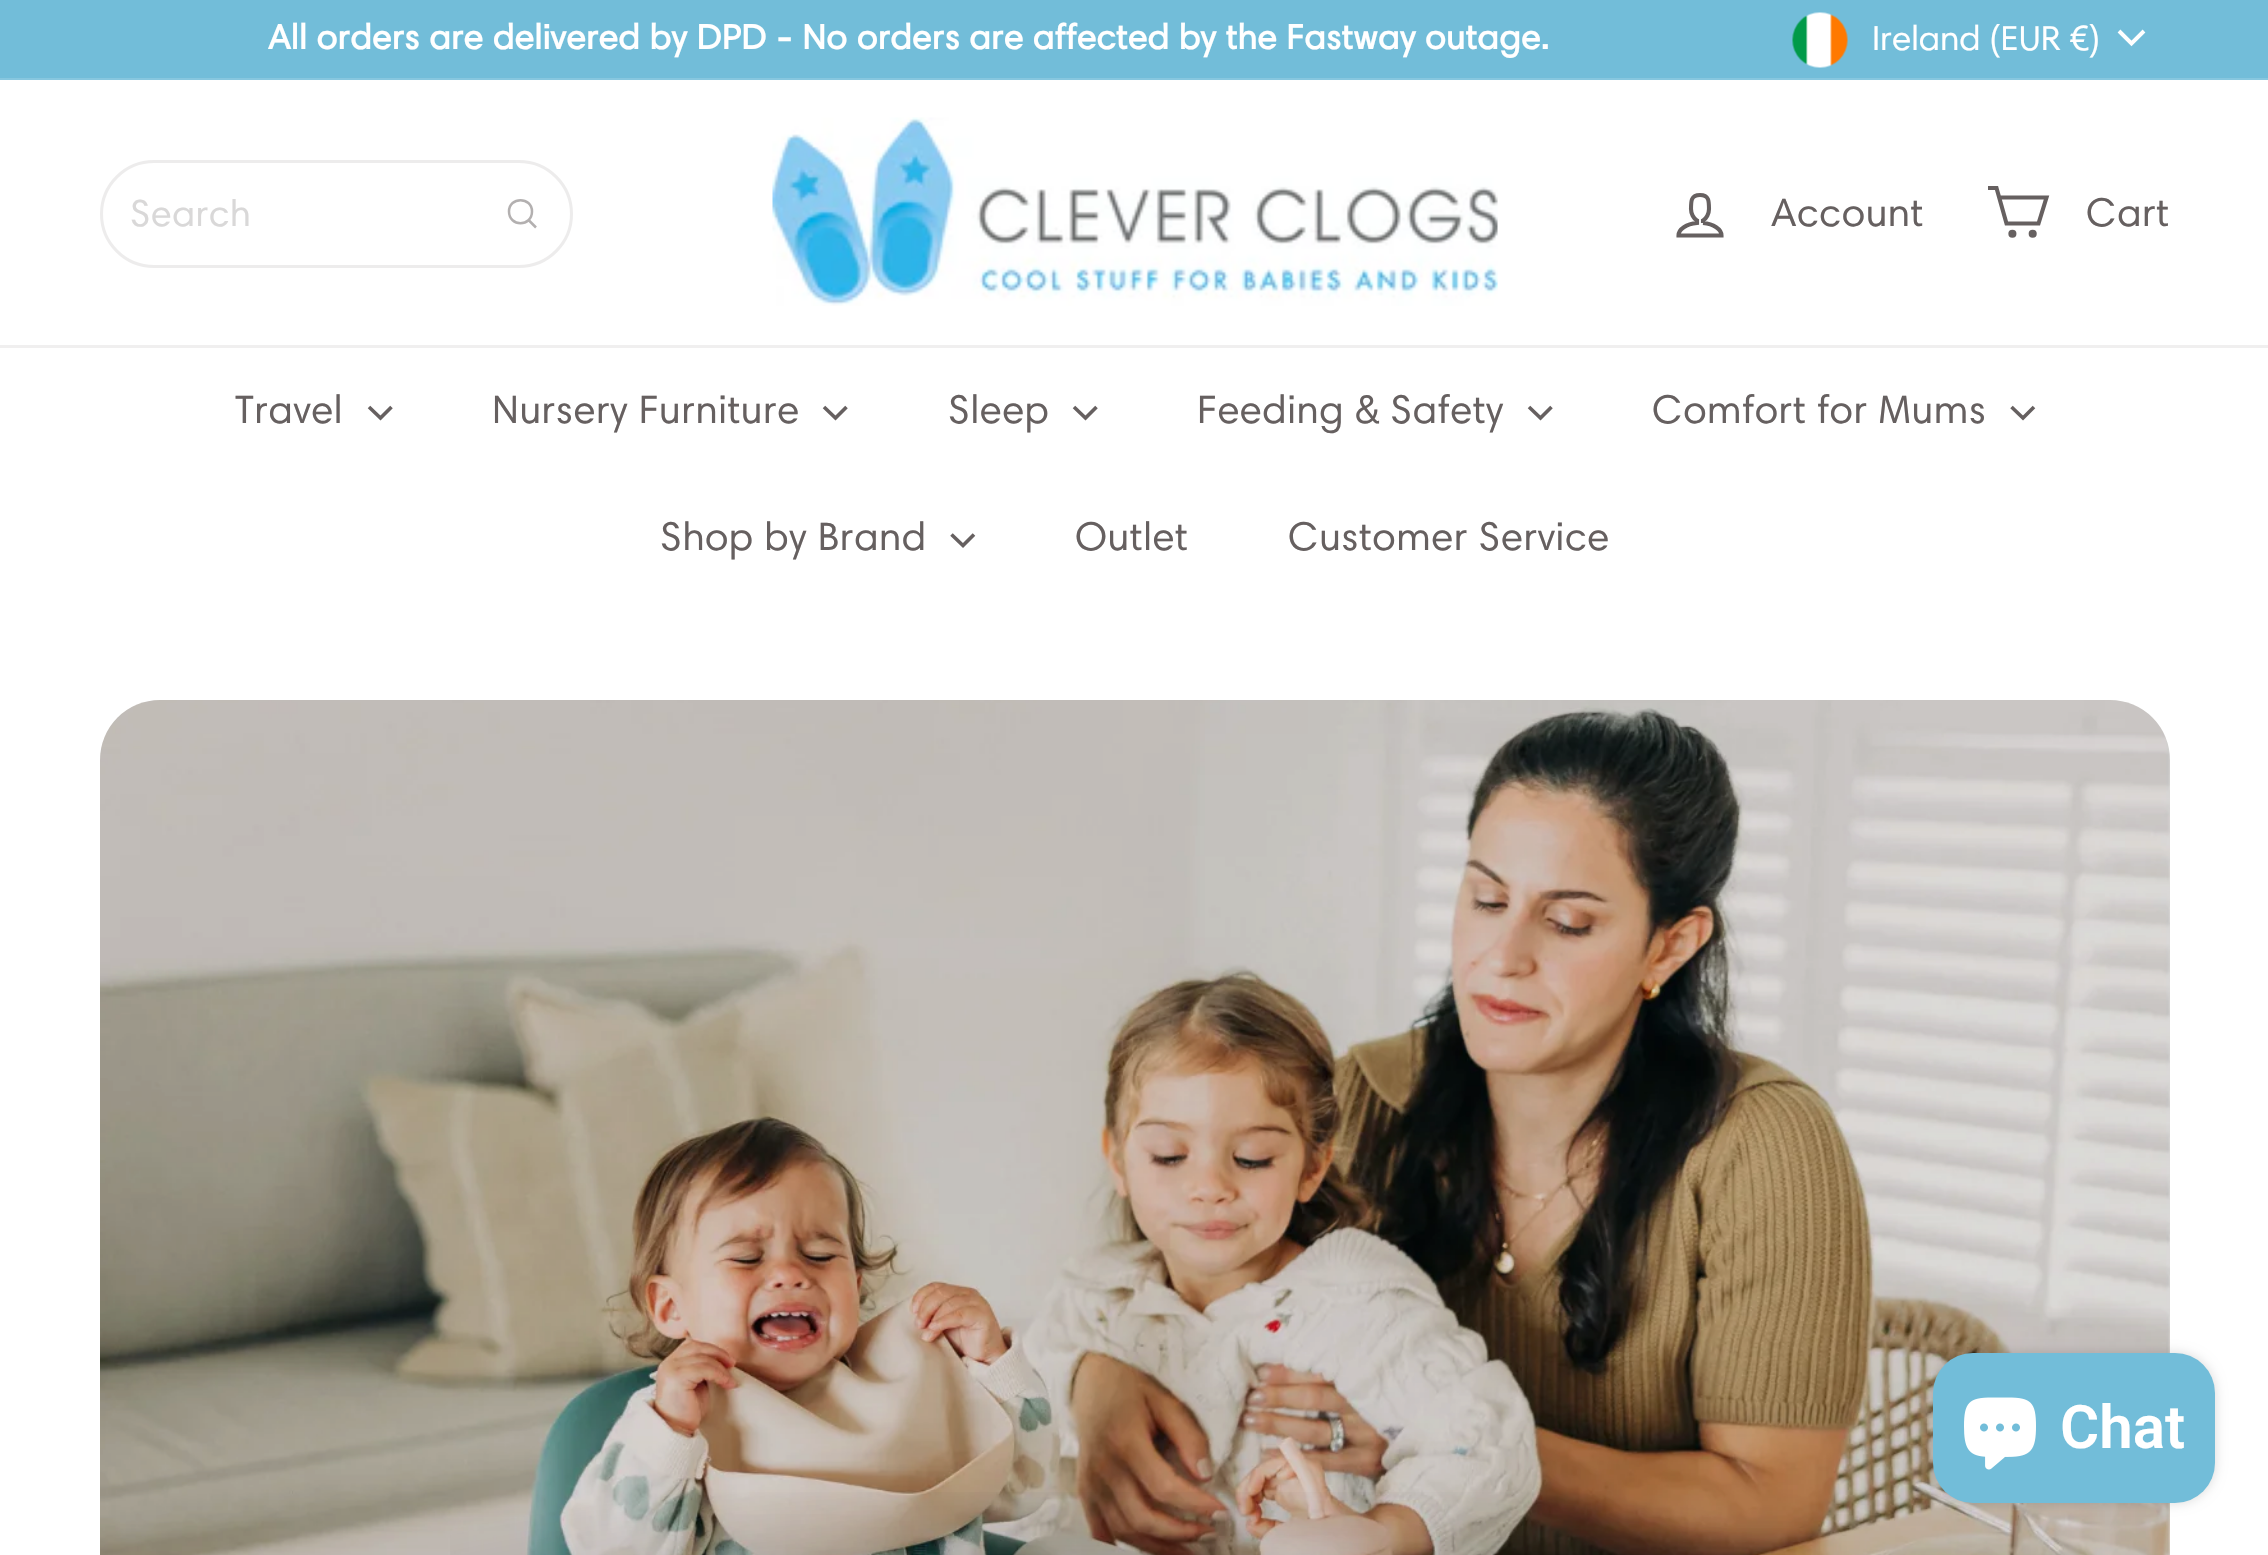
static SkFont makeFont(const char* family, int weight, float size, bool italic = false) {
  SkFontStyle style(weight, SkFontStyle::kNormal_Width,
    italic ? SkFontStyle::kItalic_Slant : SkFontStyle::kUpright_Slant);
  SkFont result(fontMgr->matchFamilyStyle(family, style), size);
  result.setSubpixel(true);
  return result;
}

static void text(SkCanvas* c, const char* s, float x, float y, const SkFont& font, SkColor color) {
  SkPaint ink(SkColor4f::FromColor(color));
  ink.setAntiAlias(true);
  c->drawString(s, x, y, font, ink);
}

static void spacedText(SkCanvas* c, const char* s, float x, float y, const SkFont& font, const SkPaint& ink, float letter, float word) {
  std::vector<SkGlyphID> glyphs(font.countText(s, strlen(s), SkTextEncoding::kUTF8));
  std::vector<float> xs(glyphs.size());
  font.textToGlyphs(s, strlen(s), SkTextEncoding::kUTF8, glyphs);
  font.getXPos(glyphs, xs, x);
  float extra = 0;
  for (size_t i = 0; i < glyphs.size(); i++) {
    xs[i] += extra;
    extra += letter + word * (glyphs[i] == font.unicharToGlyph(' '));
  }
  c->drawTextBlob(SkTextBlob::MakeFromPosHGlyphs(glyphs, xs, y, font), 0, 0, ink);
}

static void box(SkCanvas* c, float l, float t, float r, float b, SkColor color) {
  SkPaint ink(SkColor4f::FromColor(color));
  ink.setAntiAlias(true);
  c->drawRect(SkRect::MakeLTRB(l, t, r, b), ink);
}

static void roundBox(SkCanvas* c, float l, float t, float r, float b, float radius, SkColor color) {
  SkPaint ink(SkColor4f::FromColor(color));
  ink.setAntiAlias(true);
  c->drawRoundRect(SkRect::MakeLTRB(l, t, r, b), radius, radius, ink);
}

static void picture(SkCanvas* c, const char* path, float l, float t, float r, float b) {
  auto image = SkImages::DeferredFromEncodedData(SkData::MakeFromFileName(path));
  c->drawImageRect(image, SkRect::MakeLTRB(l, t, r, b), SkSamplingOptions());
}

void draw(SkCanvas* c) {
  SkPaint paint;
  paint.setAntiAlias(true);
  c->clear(0xffffffff);
  box(c, 0, 0, 2268, 78, 0xff72bdd9);
  box(c, 0, 78, 2268, 80, 0xff87c7df);
  SkFont face1 = makeFont("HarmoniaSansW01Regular", 700, 35);
  paint.setColor(0xffffffff);
  spacedText(c, "All orders are delivered by DPD - No orders are affected by the Fastway outage.", 268, 49, face1, paint, 0.6f, 0);
  picture(c, "img_01.png", 1792, 12, 1848, 68);
  SkFont face2 = makeFont("HarmoniaSansW01Regular", 400, 35);
  text(c, "Ireland (EUR €)", 1872, 50, face2, 0xffffffff);
  paint.setStyle(SkPaint::kStroke_Style);
  paint.setStrokeWidth(3.9f);
  c->drawPath(SkPathBuilder().moveTo(2119, 31).lineTo(2131.5f, 43.5f).lineTo(2144, 31).detach(), paint);
  paint.setStrokeWidth(3);
  paint.setColor(0xffedecec);
  c->drawRoundRect(SkRect::MakeLTRB(101.5f, 161.5f, 571.5f, 266.5f), 52.5f, 52.5f, paint);
  SkFont face3 = makeFont("HarmoniaSansW01Regular", 400, 37.5f);
  paint.setStyle(SkPaint::kFill_Style);
  paint.setColor(0xffd9d8d8);
  spacedText(c, "Search", 130, 226, face3, paint, 0.6f, 0);
  paint.setStyle(SkPaint::kStroke_Style);
  paint.setStrokeWidth(2.5f);
  paint.setColor(0xffb3b0b0);
  c->drawPath(SkPathBuilder().moveTo(532, 211.5f).cubicTo(532, 227, 509, 227, 509, 211.5f).cubicTo(509, 196.5f, 532, 196.5f, 532, 211.5f).moveTo(536, 227.5f).lineTo(528.5f, 220).detach(), paint);
  picture(c, "img_02.png", 772, 117, 1498, 306);
  paint.setStrokeWidth(4.1f);
  paint.setColor(0xff666060);
  c->drawPath(SkPathBuilder().moveTo(1703, 223).lineTo(1703, 220.5f).cubicTo(1706.5f, 218.5f, 1709, 213.5f, 1709, 209).cubicTo(1709, 201, 1709, 195, 1700, 195).cubicTo(1691, 195, 1691, 201, 1691, 209).cubicTo(1691, 213.5f, 1693.5f, 218.5f, 1697, 220.5f).lineTo(1697, 223).cubicTo(1686.5f, 224, 1678.5f, 229, 1678.5f, 235.5f).lineTo(1721.5f, 235.5f).cubicTo(1721.5f, 229, 1713.5f, 224, 1703, 223).detach(), paint);
  SkFont face4 = makeFont("HarmoniaSansW01Regular", 400, 40);
  paint.setStyle(SkPaint::kFill_Style);
  spacedText(c, "Account", 1771, 226, face4, paint, 0.6f, 0);
  paint.setStyle(SkPaint::kStroke_Style);
  c->drawPath(SkPathBuilder().moveTo(1999, 197.5f).lineTo(2046.5f, 197.5f).lineTo(2038.5f, 223.5f).lineTo(2006.5f, 223.5f).lineTo(1996.5f, 188).lineTo(1988, 188).detach(), paint);
  c->drawCircle(2012.4f, 233.8f, 2, paint);
  c->drawCircle(2032.7f, 233.8f, 2, paint);
  paint.setStyle(SkPaint::kFill_Style);
  spacedText(c, "Cart", 2086, 226, face4, paint, 0.6f, 0);
  box(c, 0, 345, 2268, 348, 0xfff0efef);
  spacedText(c, "Travel", 235, 423, face4, paint, 0.6f, 0);
  paint.setStyle(SkPaint::kStroke_Style);
  paint.setStrokeWidth(3.6f);
  c->drawPath(SkPathBuilder().moveTo(369, 407).lineTo(380.5f, 418).lineTo(391.5f, 407).detach(), paint);
  paint.setStyle(SkPaint::kFill_Style);
  spacedText(c, "Nursery Furniture", 492, 423, face4, paint, 0.6f, 0);
  paint.setStyle(SkPaint::kStroke_Style);
  c->drawPath(SkPathBuilder().moveTo(824, 407).lineTo(835.5f, 418).lineTo(846.5f, 407).detach(), paint);
  paint.setStyle(SkPaint::kFill_Style);
  spacedText(c, "Sleep", 948, 423, face4, paint, 0.6f, 0);
  paint.setStyle(SkPaint::kStroke_Style);
  c->drawPath(SkPathBuilder().moveTo(1074, 407).lineTo(1085.5f, 418).lineTo(1096.5f, 407).detach(), paint);
  paint.setStyle(SkPaint::kFill_Style);
  spacedText(c, "Feeding & Safety", 1197, 423, face4, paint, 0.6f, 0);
  paint.setStyle(SkPaint::kStroke_Style);
  c->drawPath(SkPathBuilder().moveTo(1529, 407).lineTo(1540.5f, 418).lineTo(1551.5f, 407).detach(), paint);
  paint.setStyle(SkPaint::kFill_Style);
  spacedText(c, "Comfort for Mums", 1652, 423, face4, paint, 0.6f, 0);
  paint.setStyle(SkPaint::kStroke_Style);
  c->drawPath(SkPathBuilder().moveTo(2011.5f, 407).lineTo(2023, 418).lineTo(2034, 407).detach(), paint);
  paint.setStyle(SkPaint::kFill_Style);
  spacedText(c, "Shop by Brand", 660, 550, face4, paint, 0.6f, 0);
  paint.setStyle(SkPaint::kStroke_Style);
  c->drawPath(SkPathBuilder().moveTo(951.5f, 534.5f).lineTo(963, 545.5f).lineTo(974, 534.5f).detach(), paint);
  paint.setStyle(SkPaint::kFill_Style);
  spacedText(c, "Outlet", 1075, 550, face4, paint, 0.6f, 0);
  spacedText(c, "Customer Service", 1288, 550, face4, paint, 0.6f, 0);
  picture(c, "img_03.png", 100, 700, 2170, 1555);
  roundBox(c, 100, 700, 2170, 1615, 60, 0x24000000);
  {
    const SkColor colors[] = {0x4d000000, 0x00000000};
    const float stops[] = {0, 0.6f};
    SkMatrix m = SkMatrix::Translate(1135, 1805).preScale(2019, 562);
    paint.setShader(SkGradientShader::MakeRadial({0, 0}, 1, colors, stops, 2, SkTileMode::kClamp, 0, &m));
    paint.setAlpha(255);
  }
  c->drawRect(SkRect::MakeLTRB(450, 1492, 1820, 1555), paint);
  paint.setShader(nullptr);
  paint.setColor(0x26000000);
  paint.setMaskFilter(SkMaskFilter::MakeBlur(kNormal_SkBlurStyle, 6));
  c->drawRoundRect(SkRect::MakeLTRB(1933, 1353, 2215, 1503), 40, 40, paint);
  paint.setMaskFilter(nullptr);
  roundBox(c, 1933, 1353, 2215, 1503, 40, 0xff72bdd9);
  picture(c, "img_04.png", 1964, 1397, 2036, 1470);
  SkFont face5 = makeFont("Roboto", 600, 60);
  text(c, "Chat", 2060, 1448, face5, 0xffffffff);
}
